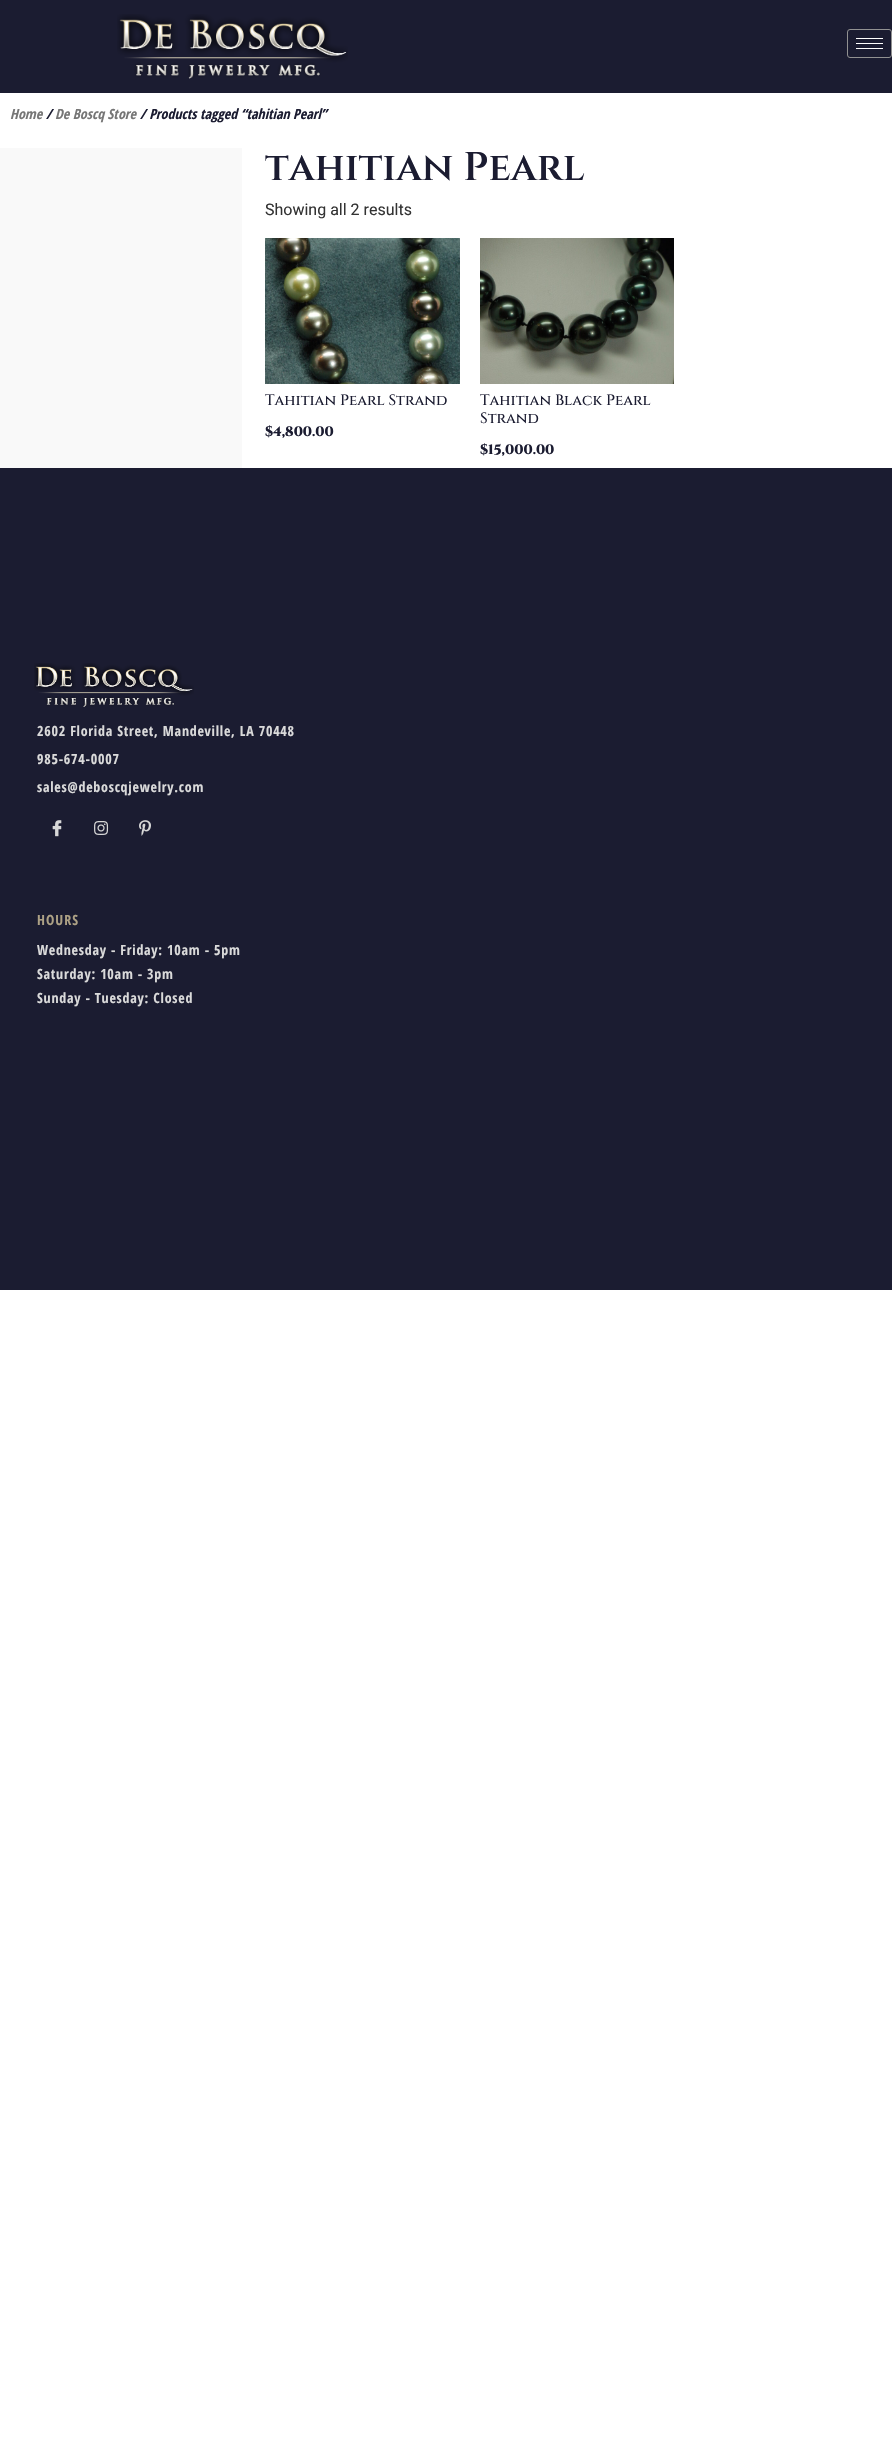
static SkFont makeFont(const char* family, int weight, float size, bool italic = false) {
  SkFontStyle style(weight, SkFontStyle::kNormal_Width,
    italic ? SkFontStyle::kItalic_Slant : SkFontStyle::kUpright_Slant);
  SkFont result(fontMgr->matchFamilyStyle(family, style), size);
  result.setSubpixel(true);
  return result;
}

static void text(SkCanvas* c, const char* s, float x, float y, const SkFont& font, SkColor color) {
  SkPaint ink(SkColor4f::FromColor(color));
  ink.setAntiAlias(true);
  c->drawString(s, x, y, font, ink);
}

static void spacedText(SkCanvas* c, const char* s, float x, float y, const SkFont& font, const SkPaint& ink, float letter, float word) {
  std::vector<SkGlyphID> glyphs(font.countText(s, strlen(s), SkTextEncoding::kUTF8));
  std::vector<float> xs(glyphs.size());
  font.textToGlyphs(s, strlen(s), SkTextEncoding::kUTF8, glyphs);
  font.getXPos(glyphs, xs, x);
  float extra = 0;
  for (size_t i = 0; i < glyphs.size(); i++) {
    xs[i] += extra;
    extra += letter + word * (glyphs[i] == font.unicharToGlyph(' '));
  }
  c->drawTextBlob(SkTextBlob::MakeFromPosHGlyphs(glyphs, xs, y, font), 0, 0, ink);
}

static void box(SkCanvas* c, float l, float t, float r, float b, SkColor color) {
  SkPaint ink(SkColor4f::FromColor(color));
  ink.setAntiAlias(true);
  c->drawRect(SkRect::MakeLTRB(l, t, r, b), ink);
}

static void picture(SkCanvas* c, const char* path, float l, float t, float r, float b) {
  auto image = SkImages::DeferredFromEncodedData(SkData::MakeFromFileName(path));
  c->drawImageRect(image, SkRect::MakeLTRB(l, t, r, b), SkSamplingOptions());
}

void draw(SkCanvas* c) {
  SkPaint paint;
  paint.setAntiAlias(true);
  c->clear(0xffffffff);
  box(c, 0, 0, 892, 93, 0xff1b1c31);
  picture(c, "img_01.png", 117, 14, 348, 79);
  paint.setStyle(SkPaint::kStroke_Style);
  paint.setStrokeWidth(1);
  paint.setColor(0xff919191);
  c->drawRoundRect(SkRect::MakeLTRB(847.5f, 29.5f, 891.5f, 57.5f), 2.5f, 2.5f, paint);
  box(c, 856, 38, 883, 39, 0xffffffff);
  box(c, 856, 43, 883, 44, 0xffffffff);
  box(c, 856, 48, 883, 49, 0xffffffff);
  SkFont face1 = makeFont("Open Sans Condensed", 700, 14, true);
  text(c, "Home", 10, 119, face1, 0xff767676);
  text(c, "/", 46, 119, face1, 0xff1b1c31);
  text(c, "De Boscq Store", 55, 119, face1, 0xff767676);
  text(c, "/ Products tagged “tahitian Pearl”", 140, 119, face1, 0xff1b1c31);
  box(c, 0, 148, 242, 468, 0xfff9f9f9);
  SkFont face2 = makeFont("Cinzel", 600, 40);
  text(c, "tahitian Pearl", 265, 180, face2, 0xff1b1c31);
  SkFont face3 = makeFont("Roboto", 400, 16);
  text(c, "Showing all 2 results", 265, 215, face3, 0xff333333);
  picture(c, "img_02.png", 265, 238, 460, 384);
  SkFont face4 = makeFont("Cinzel", 500, 15);
  text(c, "Tahitian Pearl Strand", 265, 405, face4, 0xff1b1c31);
  SkFont face5 = makeFont("Cinzel", 800, 13.75f);
  text(c, "$4,800.00", 265, 436, face5, 0xff1b1c31);
  picture(c, "img_03.png", 480, 238, 674, 384);
  text(c, "Tahitian Black Pearl", 480, 405, face4, 0xff1b1c31);
  text(c, "Strand", 480, 423, face4, 0xff1b1c31);
  text(c, "$15,000.00", 480, 454, face5, 0xff1b1c31);
  box(c, 0, 468, 892, 1290, 0xff1b1c31);
  picture(c, "img_04.png", 34, 663, 194, 707);
  SkFont face6 = makeFont("Open Sans Condensed", 700, 14);
  paint.setStyle(SkPaint::kFill_Style);
  paint.setColor(0xffdadada);
  spacedText(c, "2602 Florida Street, Mandeville, LA 70448", 37, 736, face6, paint, 0.75f, 0);
  spacedText(c, "985-674-0007", 37, 764, face6, paint, 0.75f, 0);
  spacedText(c, "sales@deboscqjewelry.com", 37, 792, face6, paint, 0.75f, 0);
  picture(c, "img_05.png", 52, 820, 62, 837);
  picture(c, "img_06.png", 94, 821, 109, 835);
  picture(c, "img_07.png", 139, 820, 151, 836);
  paint.setColor(0xffada185);
  spacedText(c, "HOURS", 37, 925, face6, paint, 1, 0);
  paint.setColor(0xffdadada);
  spacedText(c, "Wednesday - Friday: 10am - 5pm", 37, 955, face6, paint, 0.75f, 0);
  spacedText(c, "Saturday: 10am - 3pm", 37, 979, face6, paint, 0.75f, 0);
  spacedText(c, "Sunday - Tuesday: Closed", 37, 1003, face6, paint, 0.75f, 0);
}
